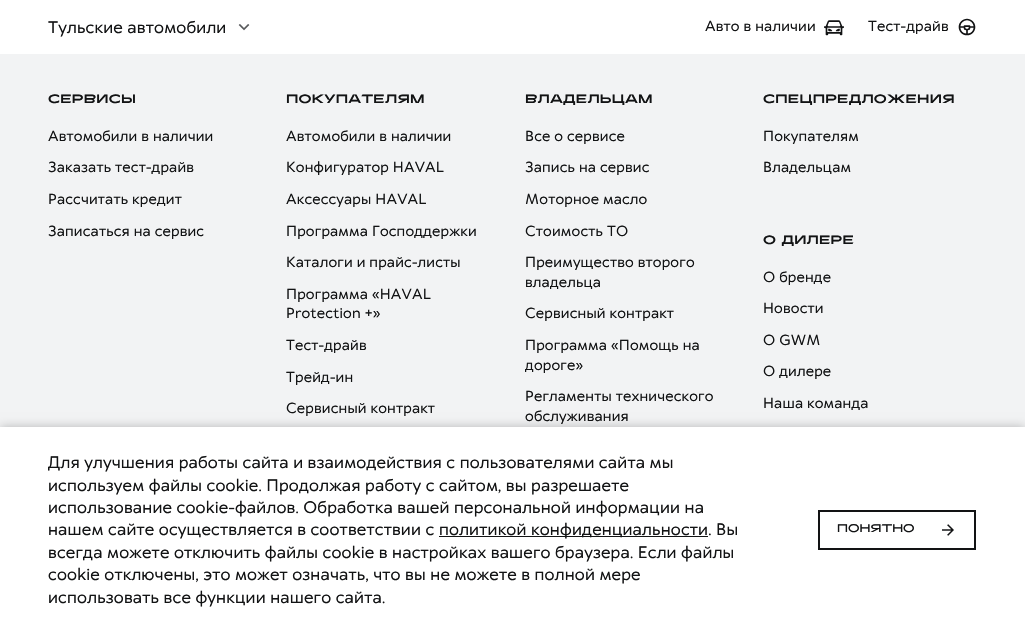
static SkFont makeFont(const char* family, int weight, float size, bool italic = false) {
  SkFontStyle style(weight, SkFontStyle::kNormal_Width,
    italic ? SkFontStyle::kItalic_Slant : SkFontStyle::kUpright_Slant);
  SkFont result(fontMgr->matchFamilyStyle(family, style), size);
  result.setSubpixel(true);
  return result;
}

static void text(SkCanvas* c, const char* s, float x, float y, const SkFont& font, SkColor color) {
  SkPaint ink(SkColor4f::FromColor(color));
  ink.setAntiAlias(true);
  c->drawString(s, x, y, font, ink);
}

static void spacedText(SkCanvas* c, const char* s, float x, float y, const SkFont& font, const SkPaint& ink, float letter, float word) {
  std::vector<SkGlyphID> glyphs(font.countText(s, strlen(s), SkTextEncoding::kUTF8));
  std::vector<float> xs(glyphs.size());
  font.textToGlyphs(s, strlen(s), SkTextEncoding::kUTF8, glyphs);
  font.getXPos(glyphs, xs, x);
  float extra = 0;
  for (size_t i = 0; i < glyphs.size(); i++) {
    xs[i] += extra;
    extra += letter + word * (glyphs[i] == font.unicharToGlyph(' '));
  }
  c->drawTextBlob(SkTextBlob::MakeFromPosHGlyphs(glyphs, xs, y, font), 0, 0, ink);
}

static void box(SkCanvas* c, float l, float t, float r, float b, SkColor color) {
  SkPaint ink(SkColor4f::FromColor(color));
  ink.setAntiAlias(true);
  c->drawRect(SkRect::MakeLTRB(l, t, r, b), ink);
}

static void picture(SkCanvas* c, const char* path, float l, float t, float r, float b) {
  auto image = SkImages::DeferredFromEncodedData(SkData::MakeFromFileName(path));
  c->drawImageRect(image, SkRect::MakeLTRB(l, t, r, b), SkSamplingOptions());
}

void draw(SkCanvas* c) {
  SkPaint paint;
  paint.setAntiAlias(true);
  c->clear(0xfff2f3f4);
  box(c, 0, 0, 1025, 54, 0xffffffff);
  SkFont face1 = makeFont("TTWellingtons", 500, 16);
  paint.setColor(0xff121314);
  spacedText(c, "Тульские автомобили", 48, 33, face1, paint, 0.2f, 0);
  picture(c, "img_01.png", 238, 24, 250, 31);
  SkFont face2 = makeFont("TTWellingtons", 500, 14);
  spacedText(c, "Авто в наличии", 705, 31, face2, paint, 0.2f, 0);
  picture(c, "img_02.png", 824, 20, 844, 36);
  spacedText(c, "Тест-драйв", 868, 31, face2, paint, 0.2f, 0);
  picture(c, "img_03.png", 958, 18, 976, 36);
  SkFont face3 = makeFont("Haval", 500, 12);
  spacedText(c, "СЕРВИСЫ", 48, 103, face3, paint, 0.2f, 0);
  spacedText(c, "Автомобили в наличии", 48, 141, face2, paint, 0.2f, 0);
  spacedText(c, "Заказать тест-драйв", 48, 172, face2, paint, 0.2f, 0);
  spacedText(c, "Рассчитать кредит", 48, 204, face2, paint, 0.2f, 0);
  spacedText(c, "Записаться на сервис", 48, 236, face2, paint, 0.2f, 0);
  spacedText(c, "ПОКУПАТЕЛЯМ", 286, 103, face3, paint, 0.2f, 0);
  spacedText(c, "Автомобили в наличии", 286, 141, face2, paint, 0.2f, 0);
  spacedText(c, "Конфигуратор HAVAL", 286, 172, face2, paint, 0.2f, 0);
  spacedText(c, "Аксессуары HAVAL", 286, 204, face2, paint, 0.2f, 0);
  spacedText(c, "Программа Господдержки", 286, 236, face2, paint, 0.2f, 0);
  spacedText(c, "Каталоги и прайс-листы", 286, 267, face2, paint, 0.2f, 0);
  spacedText(c, "Программа «HAVAL", 286, 299, face2, paint, 0.2f, 0);
  spacedText(c, "Protection +»", 286, 318, face2, paint, 0.2f, 0);
  spacedText(c, "Тест-драйв", 286, 350, face2, paint, 0.2f, 0);
  spacedText(c, "Трейд-ин", 286, 382, face2, paint, 0.2f, 0);
  spacedText(c, "Сервисный контракт", 286, 413, face2, paint, 0.2f, 0);
  spacedText(c, "ВЛАДЕЛЬЦАМ", 525, 103, face3, paint, 0.2f, 0);
  spacedText(c, "Все о сервисе", 525, 141, face2, paint, 0.2f, 0);
  spacedText(c, "Запись на сервис", 525, 172, face2, paint, 0.2f, 0);
  spacedText(c, "Моторное масло", 525, 204, face2, paint, 0.2f, 0);
  spacedText(c, "Стоимость ТО", 525, 236, face2, paint, 0.2f, 0);
  spacedText(c, "Преимущество второго", 525, 267, face2, paint, 0.2f, 0);
  spacedText(c, "владельца", 525, 287, face2, paint, 0.2f, 0);
  spacedText(c, "Сервисный контракт", 525, 318, face2, paint, 0.2f, 0);
  spacedText(c, "Программа «Помощь на", 525, 350, face2, paint, 0.2f, 0);
  c->save();
  c->clipRect(SkRect::MakeLTRB(525, 127, 739, 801));
  spacedText(c, "дороге»", 525, 370, face2, paint, 0.2f, 0);
  c->restore();
  spacedText(c, "Регламенты технического", 525, 401, face2, paint, 0.2f, 0);
  spacedText(c, "обслуживания", 525, 421, face2, paint, 0.2f, 0);
  spacedText(c, "СПЕЦПРЕДЛОЖЕНИЯ", 763, 103, face3, paint, 0.2f, 0);
  spacedText(c, "Покупателям", 763, 141, face2, paint, 0.2f, 0);
  spacedText(c, "Владельцам", 763, 172, face2, paint, 0.2f, 0);
  spacedText(c, "О ДИЛЕРЕ", 763, 244, face3, paint, 0.2f, 0);
  spacedText(c, "О бренде", 763, 282, face2, paint, 0.2f, 0);
  spacedText(c, "Новости", 763, 313, face2, paint, 0.2f, 0);
  spacedText(c, "О GWM", 763, 345, face2, paint, 0.2f, 0);
  spacedText(c, "О дилере", 763, 376, face2, paint, 0.2f, 0);
  spacedText(c, "Наша команда", 763, 408, face2, paint, 0.2f, 0);
  paint.setColor(0x40000000);
  paint.setMaskFilter(SkMaskFilter::MakeBlur(kNormal_SkBlurStyle, 5));
  c->drawRect(SkRect::MakeLTRB(0, 427, 1025, 632), paint);
  paint.setMaskFilter(nullptr);
  box(c, 0, 427, 1025, 632, 0xffffffff);
  paint.setColor(0xff121314);
  spacedText(c, "Для улучшения работы сайта и взаимодействия с пользователями сайта мы", 48, 468, face1, paint, 0.2f, 0);
  spacedText(c, "используем файлы cookie. Продолжая работу с сайтом, вы разрешаете", 48, 491, face1, paint, 0.2f, 0);
  spacedText(c, "использование cookie-файлов. Обработка вашей персональной информации на", 48, 513, face1, paint, 0.2f, 0);
  spacedText(c, "нашем сайте осуществляется в соответствии с", 48, 535, face1, paint, 0.2f, 0);
  box(c, 439, 536, 708, 537, 0xff121314);
  spacedText(c, "политикой конфиденциальности. Вы", 439, 535, face1, paint, 0.2f, 0);
  spacedText(c, "всегда можете отключить файлы cookie в настройках вашего браузера. Если файлы", 48, 558, face1, paint, 0.2f, 0);
  spacedText(c, "cookie отключены, это может означать, что вы не можете в полной мере", 48, 580, face1, paint, 0.2f, 0);
  spacedText(c, "использовать все функции нашего сайта.", 48, 603, face1, paint, 0.2f, 0);
  picture(c, "img_04.png", 942, 524, 954, 536);
  paint.setStyle(SkPaint::kStroke_Style);
  paint.setStrokeWidth(2);
  c->drawRect(SkRect::MakeLTRB(819, 511, 975, 549), paint);
  SkFont face4 = makeFont("Haval", 400, 11);
  text(c, "ПОНЯТНО", 837, 532, face4, 0xff121314);
}
